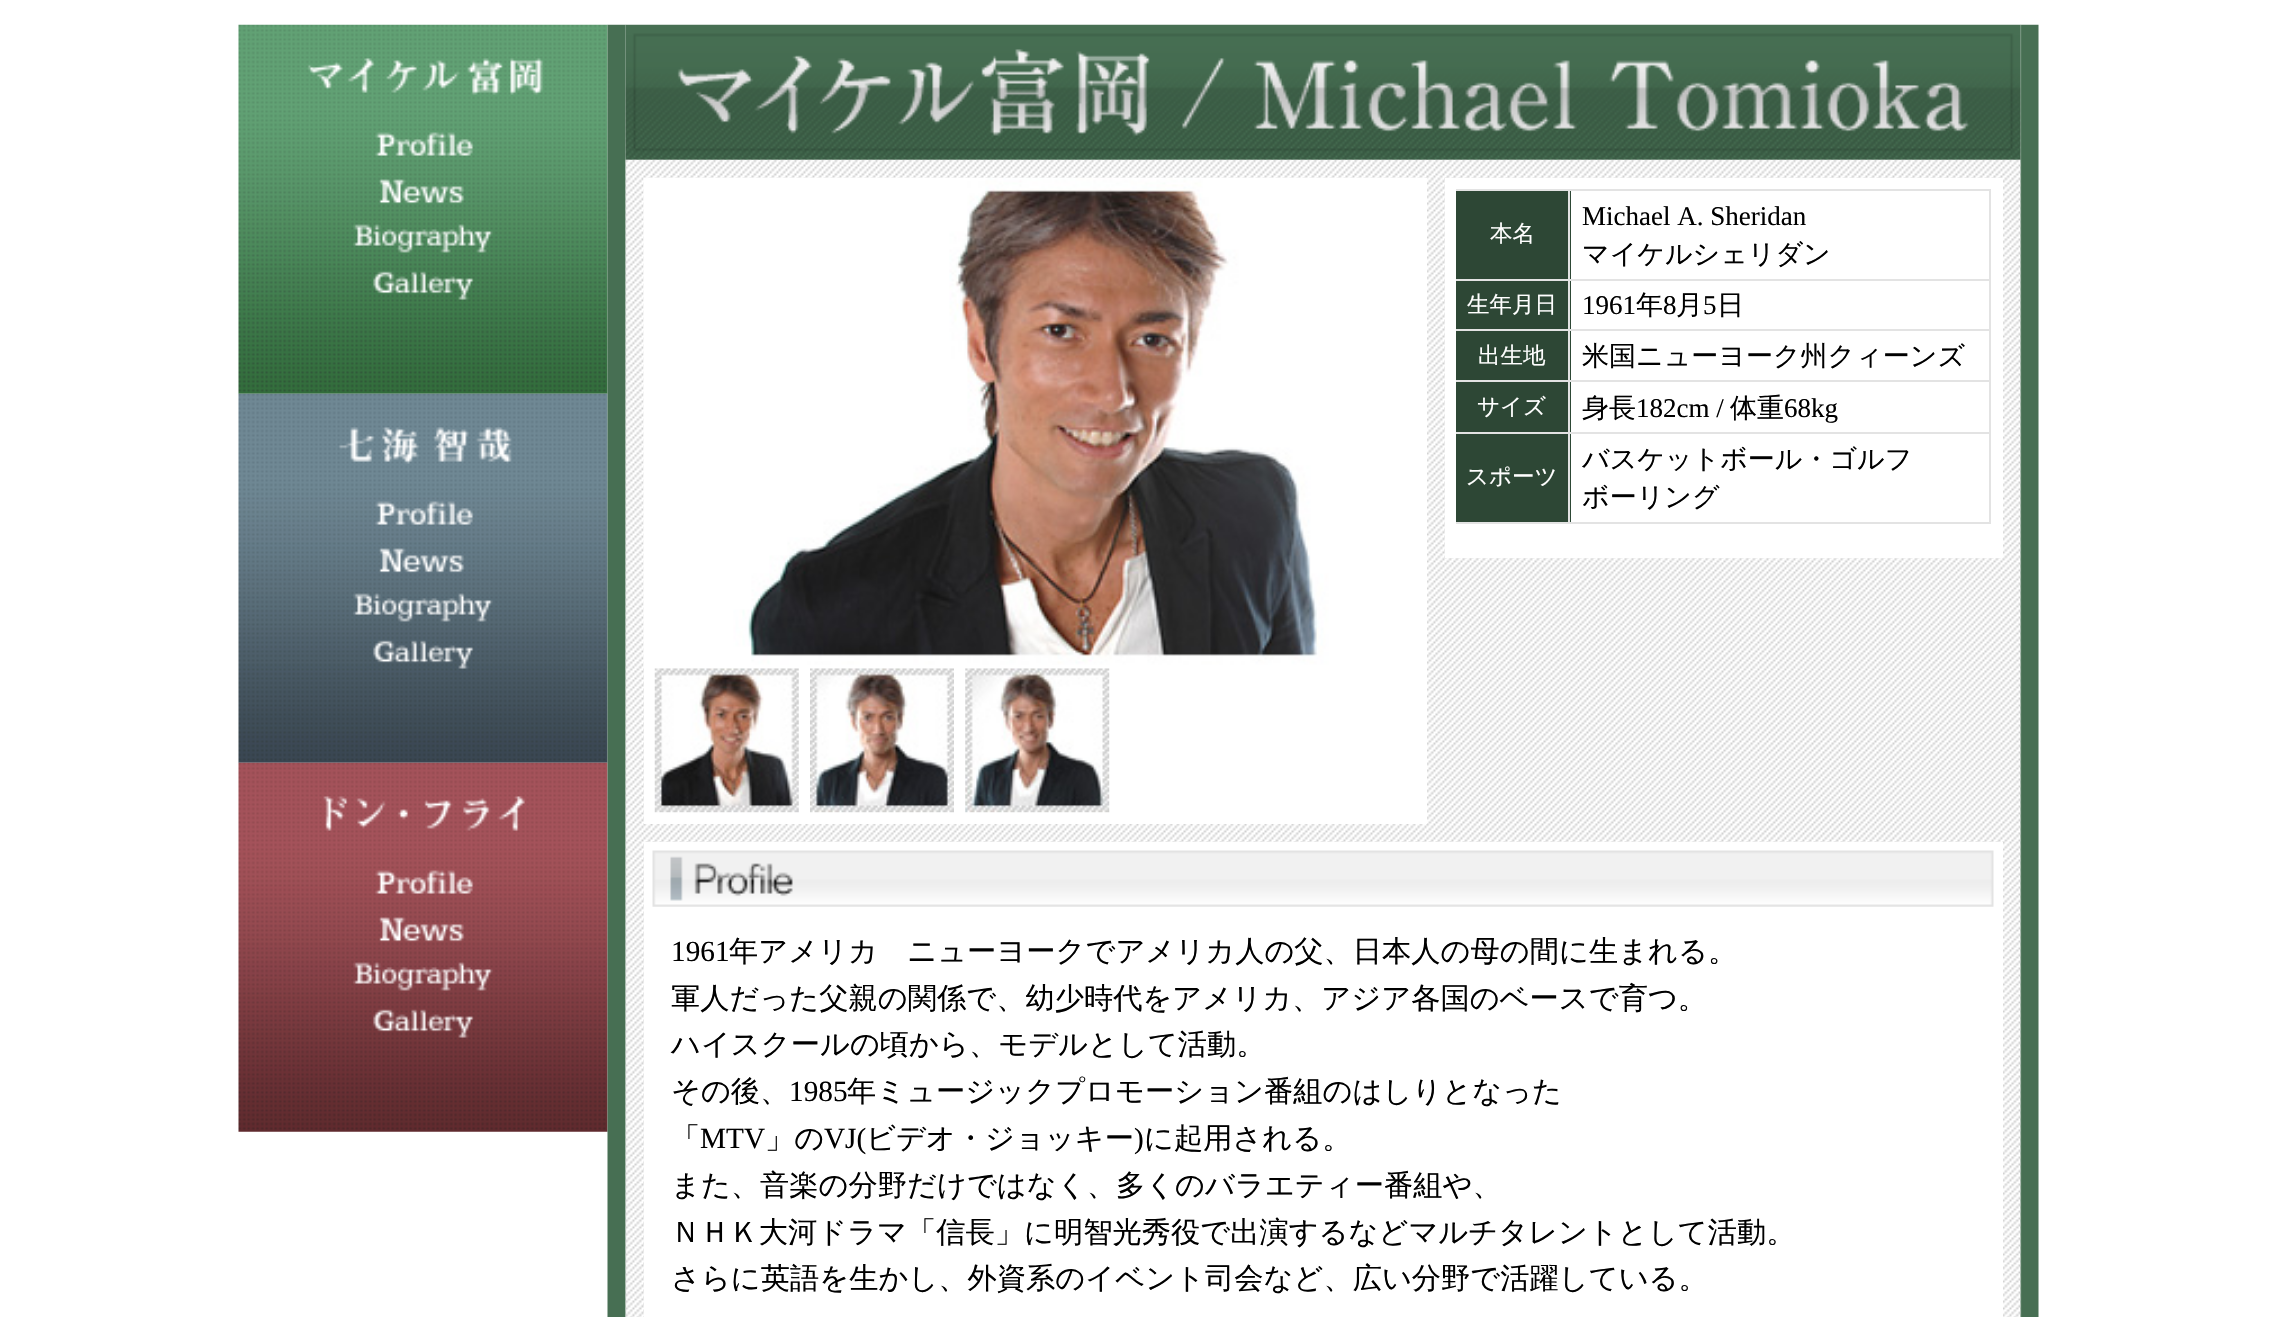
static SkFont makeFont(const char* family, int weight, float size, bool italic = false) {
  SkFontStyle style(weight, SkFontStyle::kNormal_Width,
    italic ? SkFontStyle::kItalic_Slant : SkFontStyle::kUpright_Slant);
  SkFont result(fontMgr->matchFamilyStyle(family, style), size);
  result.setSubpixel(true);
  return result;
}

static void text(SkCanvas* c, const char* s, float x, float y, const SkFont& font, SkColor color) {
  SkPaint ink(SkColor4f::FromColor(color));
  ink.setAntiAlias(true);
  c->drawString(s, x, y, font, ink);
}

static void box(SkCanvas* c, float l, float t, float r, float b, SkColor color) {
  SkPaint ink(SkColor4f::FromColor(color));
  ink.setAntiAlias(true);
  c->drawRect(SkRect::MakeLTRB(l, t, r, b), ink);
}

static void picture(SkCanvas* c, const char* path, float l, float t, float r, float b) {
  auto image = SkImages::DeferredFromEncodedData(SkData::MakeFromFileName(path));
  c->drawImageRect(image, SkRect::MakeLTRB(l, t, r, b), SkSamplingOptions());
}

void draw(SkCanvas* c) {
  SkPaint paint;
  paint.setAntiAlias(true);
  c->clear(0xffffffff);
  picture(c, "img_01.png", 238, 24, 608, 394);
  picture(c, "img_02.png", 307, 58, 543, 95);
  picture(c, "img_03.png", 375, 132, 474, 156);
  picture(c, "img_04.png", 379, 179, 465, 204);
  picture(c, "img_05.png", 353, 224, 493, 253);
  picture(c, "img_06.png", 373, 271, 474, 300);
  picture(c, "img_07.png", 238, 393, 608, 763);
  picture(c, "img_08.png", 339, 427, 512, 464);
  picture(c, "img_09.png", 375, 501, 474, 525);
  picture(c, "img_10.png", 379, 548, 465, 573);
  picture(c, "img_11.png", 353, 593, 493, 622);
  picture(c, "img_12.png", 373, 640, 474, 669);
  picture(c, "img_13.png", 238, 762, 608, 1132);
  picture(c, "img_14.png", 323, 796, 525, 831);
  picture(c, "img_15.png", 375, 870, 474, 894);
  picture(c, "img_16.png", 379, 917, 465, 942);
  picture(c, "img_17.png", 353, 962, 493, 991);
  picture(c, "img_18.png", 373, 1009, 474, 1038);
  picture(c, "img_19.png", 607, 24, 2039, 1317);
  picture(c, "img_20.png", 625, 24, 2021, 160);
  picture(c, "img_21.png", 625, 159, 2021, 1317);
  box(c, 644, 178, 1427, 824, 0xffffffff);
  picture(c, "img_23.png", 654, 668, 799, 813);
  picture(c, "img_24.png", 810, 668, 954, 813);
  picture(c, "img_25.png", 965, 668, 1110, 813);
  picture(c, "img_22.png", 643, 177, 1426, 669);
  box(c, 1445, 178, 2003, 558, 0xffffffff);
  box(c, 1456, 191, 1571, 279, 0xff2d4735);
  box(c, 1568, 189, 1991, 191, 0xffe3e3e3);
  box(c, 1568, 279, 1991, 281, 0xffe3e3e3);
  box(c, 1456, 281, 1571, 329, 0xff2d4735);
  box(c, 1568, 329, 1991, 331, 0xffe3e3e3);
  box(c, 1456, 331, 1571, 432, 0xff2d4735);
  box(c, 1568, 380, 1991, 382, 0xffe3e3e3);
  box(c, 1568, 432, 1991, 434, 0xffe3e3e3);
  box(c, 1456, 434, 1571, 522, 0xff2d4735);
  box(c, 1989, 432, 1991, 524, 0xffe3e3e3);
  box(c, 1568, 522, 1991, 524, 0xffe3e3e3);
  box(c, 1568, 432, 1570, 524, 0xffe3e3e3);
  box(c, 1456, 432, 1571, 434, 0xffe3e3e3);
  box(c, 1568, 380, 1570, 434, 0xffe3e3e3);
  box(c, 1456, 380, 1571, 382, 0xffe3e3e3);
  box(c, 1568, 329, 1570, 383, 0xffe3e3e3);
  box(c, 1456, 329, 1571, 331, 0xffe3e3e3);
  box(c, 1568, 279, 1570, 331, 0xffe3e3e3);
  box(c, 1456, 279, 1571, 281, 0xffe3e3e3);
  box(c, 1568, 189, 1570, 281, 0xffe3e3e3);
  box(c, 1456, 189, 1571, 191, 0xffe3e3e3);
  SkFont face1 = makeFont("WenQuanYi Zen Hei", 500, 22.5f);
  text(c, "本名", 1490, 241, face1, 0xffffffff);
  box(c, 1989, 380, 1991, 434, 0xffe3e3e3);
  box(c, 1989, 329, 1991, 383, 0xffe3e3e3);
  box(c, 1989, 279, 1991, 331, 0xffe3e3e3);
  box(c, 1989, 189, 1991, 281, 0xffe3e3e3);
  SkFont face2 = makeFont("Liberation Serif", 400, 27);
  text(c, "Michael A. Sheridan", 1582, 225, face2, 0xff000000);
  SkFont face3 = makeFont("WenQuanYi Zen Hei", 500, 27);
  text(c, "マイケルシェリダン", 1582, 263, face3, 0xff000000);
  text(c, "生年月日", 1467, 312, face1, 0xffffffff);
  text(c, "1961", 1582, 314, face2, 0xff000000);
  text(c, "年", 1636, 314, face3, 0xff000000);
  text(c, "8", 1663, 314, face2, 0xff000000);
  text(c, "月", 1676, 314, face3, 0xff000000);
  text(c, "5", 1703, 314, face2, 0xff000000);
  text(c, "日", 1717, 314, face3, 0xff000000);
  text(c, "出生地", 1478, 363, face1, 0xffffffff);
  text(c, "米国ニューヨーク州クィーンズ", 1582, 365, face3, 0xff000000);
  text(c, "サイズ", 1477, 414, face1, 0xffffffff);
  text(c, "身長", 1582, 417, face3, 0xff000000);
  text(c, "182cm /", 1636, 417, face2, 0xff000000);
  text(c, "体重", 1730, 417, face3, 0xff000000);
  text(c, "68kg", 1784, 417, face2, 0xff000000);
  box(c, 1456, 522, 1571, 524, 0xffe3e3e3);
  text(c, "スポーツ", 1466, 484, face1, 0xffffffff);
  text(c, "バスケットボール・ゴルフ", 1582, 468, face3, 0xff000000);
  text(c, "ボーリング", 1582, 506, face3, 0xff000000);
  box(c, 644, 842, 2003, 1317, 0xffffffff);
  picture(c, "img_26.png", 652, 850, 1994, 907);
  SkFont face4 = makeFont("Liberation Serif", 400, 29.25f);
  text(c, "1961", 671, 961, face4, 0xff000000);
  SkFont face5 = makeFont("WenQuanYi Zen Hei", 500, 29.25f);
  text(c, "年アメリカ　ニューヨークでアメリカ人の父、日本人の母の間に生まれる。", 729, 961, face5, 0xff000000);
  text(c, "軍人だった父親の関係で、幼少時代をアメリカ、アジア各国のベースで育つ。", 671, 1008, face5, 0xff000000);
  text(c, "ハイスクールの頃から、モデルとして活動。", 671, 1054, face5, 0xff000000);
  text(c, "その後、", 671, 1101, face5, 0xff000000);
  text(c, "1985", 789, 1101, face4, 0xff000000);
  text(c, "年ミュージックプロモーション番組のはしりとなった", 847, 1101, face5, 0xff000000);
  text(c, "「", 671, 1148, face5, 0xff000000);
  text(c, "MTV", 700, 1148, face4, 0xff000000);
  text(c, "」の", 765, 1148, face5, 0xff000000);
  text(c, "VJ(", 824, 1148, face4, 0xff000000);
  text(c, "ビデオ・ジョッキー", 866, 1148, face5, 0xff000000);
  text(c, ")", 1134, 1148, face4, 0xff000000);
  text(c, "に起用される。", 1144, 1148, face5, 0xff000000);
  text(c, "また、音楽の分野だけではなく、多くのバラエティー番組や、", 671, 1195, face5, 0xff000000);
  text(c, "ＮＨＫ大河ドラマ「信長」に明智光秀役で出演するなどマルチタレントとして活動。", 671, 1242, face5, 0xff000000);
  text(c, "さらに英語を生かし、外資系のイベント司会など、広い分野で活躍している。", 671, 1288, face5, 0xff000000);
}
